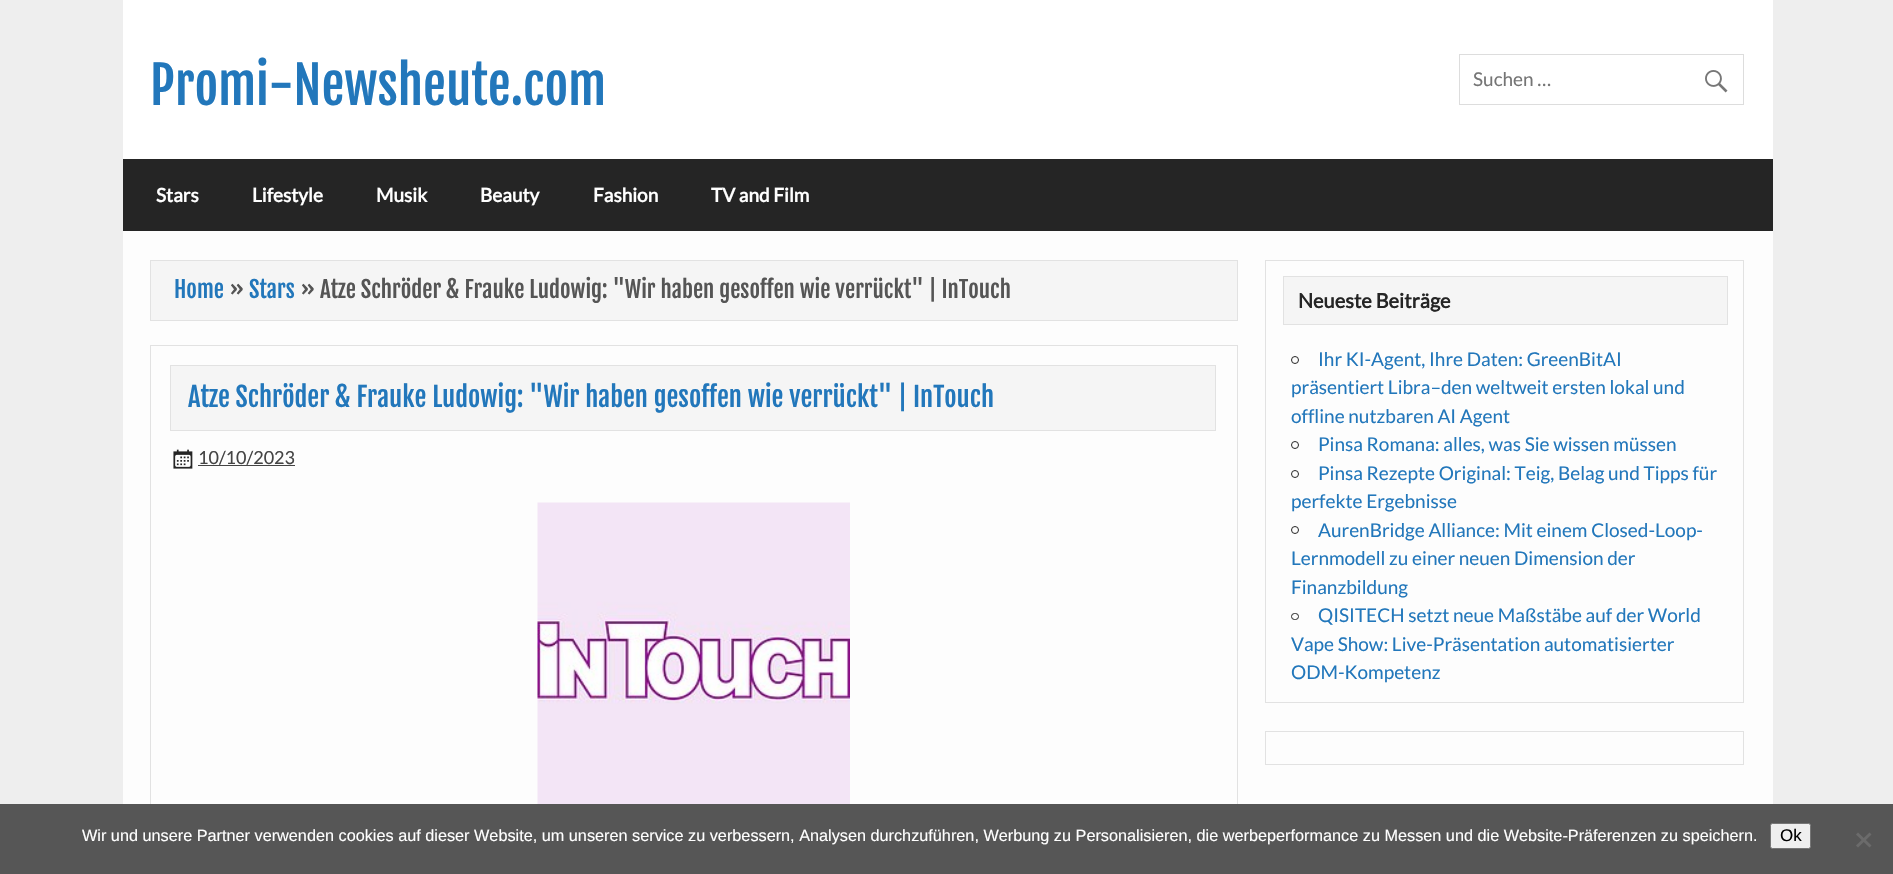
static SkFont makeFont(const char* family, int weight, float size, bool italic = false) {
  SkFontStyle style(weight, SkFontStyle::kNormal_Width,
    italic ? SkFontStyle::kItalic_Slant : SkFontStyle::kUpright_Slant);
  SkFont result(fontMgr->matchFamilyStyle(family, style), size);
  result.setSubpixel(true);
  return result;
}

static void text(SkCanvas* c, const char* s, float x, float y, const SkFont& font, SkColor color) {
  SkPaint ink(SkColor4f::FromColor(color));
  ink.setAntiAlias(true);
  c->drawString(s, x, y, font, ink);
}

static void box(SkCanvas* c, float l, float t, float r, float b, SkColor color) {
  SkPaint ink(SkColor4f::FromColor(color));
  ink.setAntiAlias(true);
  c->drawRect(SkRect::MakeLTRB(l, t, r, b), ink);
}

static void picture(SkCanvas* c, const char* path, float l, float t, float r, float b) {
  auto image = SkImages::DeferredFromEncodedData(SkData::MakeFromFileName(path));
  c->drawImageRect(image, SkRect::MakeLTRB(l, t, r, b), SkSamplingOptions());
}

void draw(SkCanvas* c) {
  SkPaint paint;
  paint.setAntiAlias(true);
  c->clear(0xffeeeeee);
  box(c, 123, 0, 1773, 159, 0xffffffff);
  SkFont face1 = makeFont("Fjalla One", 400, 51.25f);
  text(c, "Promi-Newsheute.com", 150, 105, face1, 0xff2277bb);
  paint.setStyle(SkPaint::kStroke_Style);
  paint.setStrokeWidth(1);
  paint.setColor(0xffdddddd);
  c->drawRect(SkRect::MakeLTRB(1459.5f, 54.5f, 1743.5f, 104.5f), paint);
  SkFont face2 = makeFont("Lato", 400, 19);
  text(c, "Suchen …", 1473, 86, face2, 0xff757575);
  picture(c, "img_01.png", 1705, 70, 1728, 93);
  box(c, 123, 159, 1773, 231, 0xff252525);
  SkFont face3 = makeFont("Lato", 700, 19);
  text(c, "Stars", 156, 202, face3, 0xffffffff);
  text(c, "Lifestyle", 252, 202, face3, 0xffffffff);
  text(c, "Musik", 376, 202, face3, 0xffffffff);
  text(c, "Beauty", 480, 202, face3, 0xffffffff);
  text(c, "Fashion", 593, 202, face3, 0xffffffff);
  text(c, "TV and Film", 711, 202, face3, 0xffffffff);
  box(c, 123, 231, 1773, 804, 0xfffdfdfd);
  paint.setStyle(SkPaint::kFill_Style);
  paint.setColor(0xfff5f5f5);
  c->drawRect(SkRect::MakeLTRB(150.5f, 260.5f, 1237.5f, 320.5f), paint);
  paint.setStyle(SkPaint::kStroke_Style);
  paint.setColor(0xffe2e2e2);
  c->drawRect(SkRect::MakeLTRB(150.5f, 260.5f, 1237.5f, 320.5f), paint);
  SkFont face4 = makeFont("Fjalla One", 400, 22.8f);
  text(c, "Home", 174, 298, face4, 0xff2277bb);
  text(c, "»", 229, 298, face4, 0xff555555);
  text(c, "Stars", 249, 298, face4, 0xff2277bb);
  text(c, "» Atze Schröder & Frauke Ludowig: \"Wir haben gesoffen wie verrückt\" | InTouch", 300, 298, face4, 0xff555555);
  c->drawRect(SkRect::MakeLTRB(150.5f, 345.5f, 1237.5f, 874.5f), paint);
  paint.setStyle(SkPaint::kFill_Style);
  paint.setColor(0xfff5f5f5);
  c->drawRect(SkRect::MakeLTRB(170.5f, 365.5f, 1215.5f, 430.5f), paint);
  paint.setStyle(SkPaint::kStroke_Style);
  paint.setColor(0xffe2e2e2);
  c->drawRect(SkRect::MakeLTRB(170.5f, 365.5f, 1215.5f, 430.5f), paint);
  SkFont face5 = makeFont("Fjalla One", 400, 26.6f);
  text(c, "Atze Schröder & Frauke Ludowig: \"Wir haben gesoffen wie verrückt\" | InTouch", 188, 407, face5, 0xff2277bb);
  picture(c, "img_02.png", 173, 449, 193, 469);
  SkFont face6 = makeFont("Lato", 400, 18);
  text(c, "10/10/2023", 198, 464, face6, 0xff444444);
  box(c, 198, 465, 295, 466, 0xff444444);
  picture(c, "img_03.png", 537, 502, 850, 804);
  c->drawRect(SkRect::MakeLTRB(1265.5f, 260.5f, 1743.5f, 702.5f), paint);
  paint.setStyle(SkPaint::kFill_Style);
  paint.setColor(0xfff5f5f5);
  c->drawRect(SkRect::MakeLTRB(1283.5f, 276.5f, 1727.5f, 324.5f), paint);
  paint.setStyle(SkPaint::kStroke_Style);
  paint.setColor(0xffe2e2e2);
  c->drawRect(SkRect::MakeLTRB(1283.5f, 276.5f, 1727.5f, 324.5f), paint);
  SkFont face7 = makeFont("Lato", 700, 20);
  text(c, "Neueste Beiträge", 1298, 308, face7, 0xff252525);
  paint.setColor(0xff252525);
  c->drawCircle(1295, 360, 3.5f, paint);
  text(c, "Ihr KI-Agent, Ihre Daten: GreenBitAI", 1318, 366, face2, 0xff2277bb);
  text(c, "präsentiert Libra–den weltweit ersten lokal und", 1291, 394, face2, 0xff2277bb);
  text(c, "offline nutzbaren AI Agent", 1291, 423, face2, 0xff2277bb);
  c->drawCircle(1295, 445, 3.5f, paint);
  text(c, "Pinsa Romana: alles, was Sie wissen müssen", 1318, 451, face2, 0xff2277bb);
  c->drawCircle(1295, 474, 3.5f, paint);
  text(c, "Pinsa Rezepte Original: Teig, Belag und Tipps für", 1318, 480, face2, 0xff2277bb);
  text(c, "perfekte Ergebnisse", 1291, 508, face2, 0xff2277bb);
  c->drawCircle(1295, 530, 3.5f, paint);
  text(c, "AurenBridge Alliance: Mit einem Closed-Loop-", 1318, 537, face2, 0xff2277bb);
  text(c, "Lernmodell zu einer neuen Dimension der", 1291, 565, face2, 0xff2277bb);
  text(c, "Finanzbildung", 1291, 594, face2, 0xff2277bb);
  c->drawRoundRect(SkRect::MakeLTRB(1291.5f, 613.5f, 1298.5f, 619.5f), 3, 3, paint);
  text(c, "QISITECH setzt neue Maßstäbe auf der World", 1318, 622, face2, 0xff2277bb);
  text(c, "Vape Show: Live-Präsentation automatisierter", 1291, 651, face2, 0xff2277bb);
  text(c, "ODM-Kompetenz", 1291, 679, face2, 0xff2277bb);
  paint.setColor(0xffe2e2e2);
  c->drawRect(SkRect::MakeLTRB(1265.5f, 731.5f, 1743.5f, 764.5f), paint);
  box(c, 0, 804, 1893, 874, 0xff565656);
  SkFont face8 = makeFont("Liberation Sans", 400, 16.25f);
  text(c, "Wir und unsere Partner verwenden cookies auf dieser Website, um unseren service zu verbessern, Analysen durchzuführen, Werbung zu Personalisieren, die werbeperformance zu Messen und die Website-Präferenzen zu speichern.", 82, 841, face8, 0xffffffff);
  paint.setStyle(SkPaint::kFill_Style);
  paint.setColor(0xffefefef);
  c->drawRoundRect(SkRect::MakeLTRB(1770.5f, 823.5f, 1810.5f, 848.5f), 2, 2, paint);
  paint.setStyle(SkPaint::kStroke_Style);
  paint.setColor(0xff767676);
  c->drawRoundRect(SkRect::MakeLTRB(1770.5f, 823.5f, 1810.5f, 848.5f), 2, 2, paint);
  SkFont face9 = makeFont("Liberation Sans", 400, 17);
  text(c, "Ok", 1780, 841, face9, 0xff000000);
  paint.setStyle(SkPaint::kFill_Style);
  paint.setColor(0xff6b6b6b);
  c->drawPath(SkPathBuilder().moveTo(1869.5f, 832.5f).lineTo(1871.5f, 834.5f).lineTo(1858, 847.5f).lineTo(1856, 845.5f).close().detach(), paint);
  c->drawPath(SkPathBuilder().moveTo(1856, 834.5f).lineTo(1858, 832.5f).lineTo(1871.5f, 845.5f).lineTo(1869.5f, 847.5f).close().detach(), paint);
}
